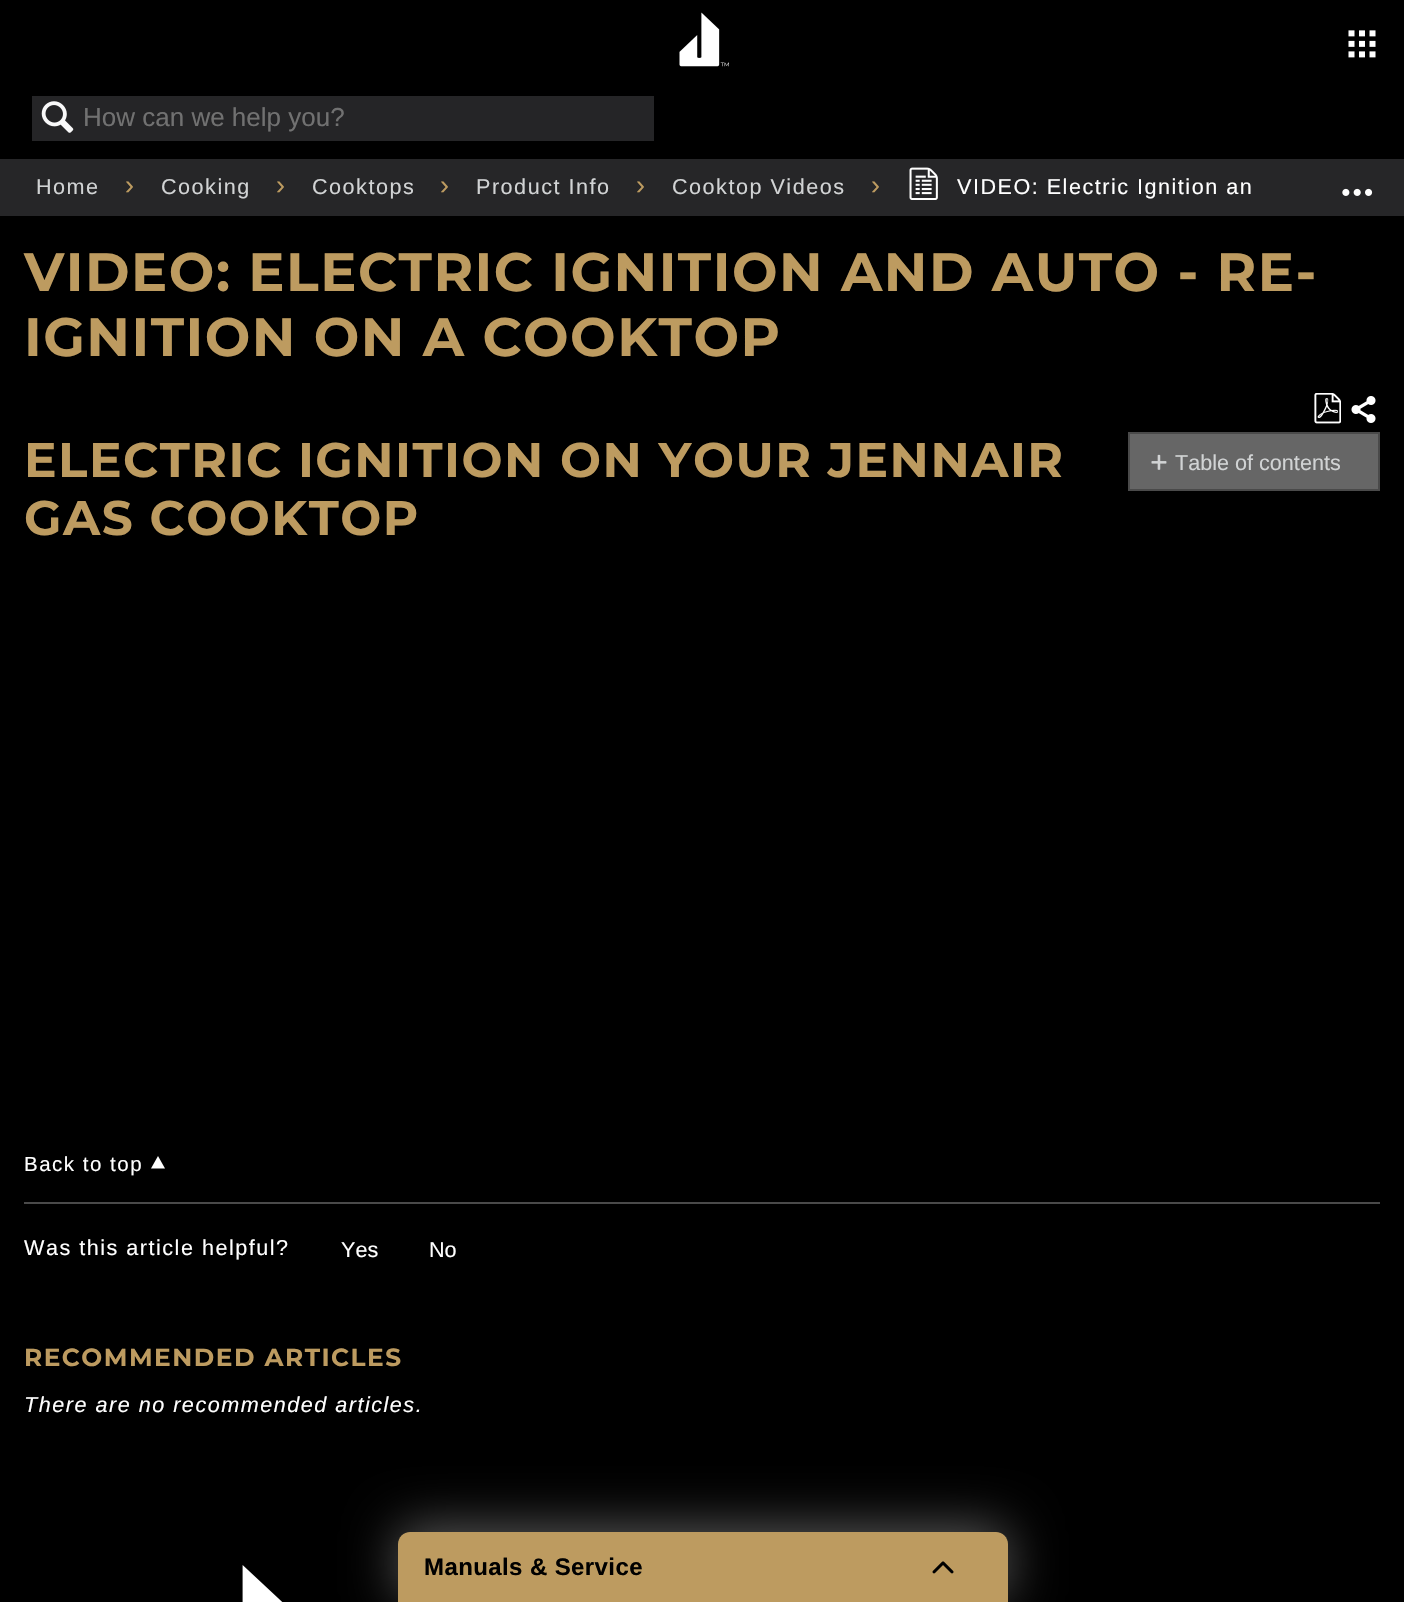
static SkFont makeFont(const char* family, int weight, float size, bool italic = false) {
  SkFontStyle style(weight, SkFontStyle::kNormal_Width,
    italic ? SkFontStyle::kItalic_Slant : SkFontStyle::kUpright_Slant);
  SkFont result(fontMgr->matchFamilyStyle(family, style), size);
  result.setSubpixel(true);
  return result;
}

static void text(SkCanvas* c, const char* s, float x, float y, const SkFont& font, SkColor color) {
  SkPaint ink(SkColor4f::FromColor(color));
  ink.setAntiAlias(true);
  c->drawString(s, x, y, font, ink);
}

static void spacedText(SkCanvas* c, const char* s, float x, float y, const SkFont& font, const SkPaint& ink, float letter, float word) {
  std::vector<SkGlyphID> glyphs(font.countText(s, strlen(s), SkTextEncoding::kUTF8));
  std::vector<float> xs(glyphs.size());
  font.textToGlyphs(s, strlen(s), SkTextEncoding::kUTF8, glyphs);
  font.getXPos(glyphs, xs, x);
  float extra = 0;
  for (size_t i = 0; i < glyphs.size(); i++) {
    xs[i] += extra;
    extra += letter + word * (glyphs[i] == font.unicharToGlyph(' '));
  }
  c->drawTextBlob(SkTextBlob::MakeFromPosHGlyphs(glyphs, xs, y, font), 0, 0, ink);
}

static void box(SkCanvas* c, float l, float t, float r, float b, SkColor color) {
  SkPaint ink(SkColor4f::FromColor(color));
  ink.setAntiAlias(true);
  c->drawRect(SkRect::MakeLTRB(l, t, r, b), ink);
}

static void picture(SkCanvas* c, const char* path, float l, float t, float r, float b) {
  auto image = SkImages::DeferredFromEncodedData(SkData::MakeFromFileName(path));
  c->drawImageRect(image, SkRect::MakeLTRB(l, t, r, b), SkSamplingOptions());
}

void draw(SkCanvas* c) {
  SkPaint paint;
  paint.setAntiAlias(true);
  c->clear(0xff000000);
  picture(c, "img_01.png", 679, 12, 729, 67);
  picture(c, "img_02.png", 1348, 30, 1376, 58);
  box(c, 32, 96, 654, 141, 0xff252527);
  picture(c, "img_03.png", 41, 101, 74, 133);
  SkFont face1 = makeFont("Liberation Sans", 400, 26);
  text(c, "How can we help you?", 83, 126, face1, 0xff717171);
  box(c, 0, 159, 1404, 216, 0xff262628);
  SkFont face2 = makeFont("Liberation Sans", 400, 21.6f);
  paint.setColor(0xffd1d3d4);
  spacedText(c, "Home", 36, 194, face2, paint, 1.5f, 0);
  SkFont face3 = makeFont("Liberation Sans", 400, 27);
  paint.setColor(0xffbd9b60);
  spacedText(c, "›", 125, 194, face3, paint, 1.5f, 0);
  paint.setColor(0xffd1d3d4);
  spacedText(c, "Cooking", 161, 194, face2, paint, 1.5f, 0);
  paint.setColor(0xffbd9b60);
  spacedText(c, "›", 276, 194, face3, paint, 1.5f, 0);
  paint.setColor(0xffd1d3d4);
  spacedText(c, "Cooktops", 312, 194, face2, paint, 1.5f, 0);
  paint.setColor(0xffbd9b60);
  spacedText(c, "›", 440, 194, face3, paint, 1.5f, 0);
  paint.setColor(0xffd1d3d4);
  spacedText(c, "Product Info", 476, 194, face2, paint, 1.5f, 0);
  paint.setColor(0xffbd9b60);
  spacedText(c, "›", 636, 194, face3, paint, 1.5f, 0);
  paint.setColor(0xffd1d3d4);
  spacedText(c, "Cooktop Videos", 672, 194, face2, paint, 1.5f, 0);
  paint.setColor(0xffbd9b60);
  spacedText(c, "›", 871, 194, face3, paint, 1.5f, 0);
  picture(c, "img_04.png", 909, 167, 938, 200);
  paint.setColor(0xffffffff);
  spacedText(c, "VIDEO: Electric Ignition an", 957, 194, face2, paint, 1.5f, 0);
  picture(c, "img_05.png", 1342, 188, 1373, 196);
  SkFont face4 = makeFont("Montserrat", 700, 54);
  paint.setColor(0xffbd9b60);
  spacedText(c, "VIDEO: ELECTRIC IGNITION AND AUTO - RE-", 24, 291, face4, paint, 1.5f, 0);
  spacedText(c, "IGNITION ON A COOKTOP", 24, 356, face4, paint, 1.5f, 0);
  picture(c, "img_06.png", 1314, 393, 1341, 424);
  picture(c, "img_07.png", 1351, 396, 1376, 423);
  SkFont face5 = makeFont("Montserrat", 700, 48.6f);
  spacedText(c, "ELECTRIC IGNITION ON YOUR JENNAIR", 24, 477, face5, paint, 1.5f, 0);
  spacedText(c, "GAS COOKTOP", 24, 535, face5, paint, 1.5f, 0);
  c->drawPath(SkPathBuilder().moveTo(410, 1532).lineTo(996, 1532).cubicTo(1002.5f, 1532, 1008, 1537.5f, 1008, 1544).lineTo(1008, 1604).lineTo(398, 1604).lineTo(398, 1544).cubicTo(398, 1537.5f, 403.5f, 1532, 410, 1532).close().detach(), paint);
  c->save();
  c->clipPath(SkPathBuilder(SkPathFillType::kEvenOdd).moveTo(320, 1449).lineTo(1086, 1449).lineTo(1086, 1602).lineTo(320, 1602).close().moveTo(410, 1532).lineTo(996, 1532).cubicTo(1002.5f, 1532, 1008, 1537.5f, 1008, 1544).lineTo(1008, 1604).lineTo(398, 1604).lineTo(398, 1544).cubicTo(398, 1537.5f, 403.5f, 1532, 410, 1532).close().detach(), true);
  paint.setColor(0x59ffffff);
  paint.setMaskFilter(SkMaskFilter::MakeBlur(kNormal_SkBlurStyle, 25.5f));
  c->drawRoundRect(SkRect::MakeLTRB(398, 1527, 1008, 1599), 12, 12, paint);
  paint.setMaskFilter(nullptr);
  c->restore();
  SkFont face6 = makeFont("Liberation Sans", 700, 24);
  paint.setColor(0xff000000);
  spacedText(c, "Manuals & Service", 424, 1575, face6, paint, 0.4f, 0);
  picture(c, "img_08.png", 932, 1561, 954, 1574);
  paint.setColor(0xff666666);
  c->drawRect(SkRect::MakeLTRB(1129, 433, 1379, 490), paint);
  paint.setStyle(SkPaint::kStroke_Style);
  paint.setStrokeWidth(2);
  paint.setColor(0xff4a4a4a);
  c->drawRect(SkRect::MakeLTRB(1129, 433, 1379, 490), paint);
  picture(c, "img_09.png", 1151, 454, 1167, 470);
  text(c, "Table of contents", 1175, 470, face2, 0xffd1d3d4);
  box(c, 24, 1202, 1380, 1204, 0xff4a4a4a);
  SkFont face7 = makeFont("Liberation Sans", 400, 20.5f);
  paint.setStyle(SkPaint::kFill_Style);
  paint.setColor(0xffffffff);
  spacedText(c, "Back to top", 24, 1171, face7, paint, 1.5f, 0);
  c->drawPath(SkPathBuilder().moveTo(151, 1168.5f).lineTo(165, 1168.5f).lineTo(158, 1156).close().detach(), paint);
  spacedText(c, "Was this article helpful?", 24, 1255, face2, paint, 1.5f, 0);
  text(c, "Yes", 341, 1257, face2, 0xffffffff);
  text(c, "No", 429, 1257, face2, 0xffffffff);
  SkFont face8 = makeFont("Montserrat", 700, 24.8f);
  paint.setColor(0xffbd9b60);
  spacedText(c, "RECOMMENDED ARTICLES", 24, 1366, face8, paint, 1.5f, 0);
  SkFont face9 = makeFont("Liberation Sans", 400, 21.6f, true);
  paint.setColor(0xffffffff);
  spacedText(c, "There are no recommended articles.", 24, 1412, face9, paint, 1.5f, 0);
  picture(c, "img_10.png", 242, 1565, 283, 1602);
}
